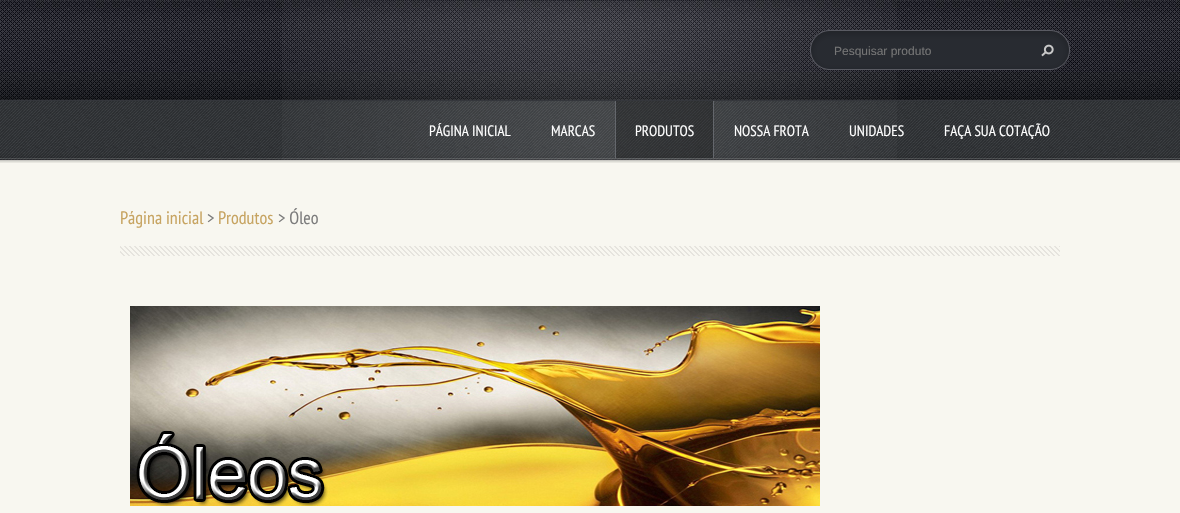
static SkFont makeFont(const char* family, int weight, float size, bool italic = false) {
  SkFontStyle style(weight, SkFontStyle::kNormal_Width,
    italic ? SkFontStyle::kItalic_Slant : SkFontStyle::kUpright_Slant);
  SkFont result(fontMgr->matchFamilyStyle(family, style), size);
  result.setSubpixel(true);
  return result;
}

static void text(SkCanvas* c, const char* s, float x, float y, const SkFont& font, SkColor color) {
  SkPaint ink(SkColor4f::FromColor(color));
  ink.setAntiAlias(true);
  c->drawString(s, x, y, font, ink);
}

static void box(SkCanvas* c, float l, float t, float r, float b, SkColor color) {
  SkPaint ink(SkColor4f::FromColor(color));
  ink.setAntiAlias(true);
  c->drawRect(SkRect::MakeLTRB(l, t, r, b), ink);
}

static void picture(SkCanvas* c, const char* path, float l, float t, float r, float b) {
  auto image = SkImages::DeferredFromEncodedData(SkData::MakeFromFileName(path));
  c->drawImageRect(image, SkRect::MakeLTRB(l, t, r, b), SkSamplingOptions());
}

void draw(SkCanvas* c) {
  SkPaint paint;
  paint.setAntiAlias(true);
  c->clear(0xffffffff);
  picture(c, "img_01.png", 0, 100, 1180, 160);
  picture(c, "img_02.png", 0, 0, 1180, 100);
  picture(c, "img_03.png", 282, 1, 897, 100);
  picture(c, "img_04.png", 810, 30, 1070, 70);
  SkFont face1 = makeFont("Liberation Sans", 400, 12);
  text(c, "Pesquisar produto", 834, 55, face1, 0xff757575);
  picture(c, "img_05.png", 1041, 44, 1054, 57);
  picture(c, "img_06.png", 0, 100, 1180, 160);
  picture(c, "img_07.png", 282, 101, 897, 160);
  SkFont face2 = makeFont("PT Sans Narrow", 400, 15);
  text(c, "PÁGINA INICIAL", 429, 136, face2, 0xffffffff);
  text(c, "MARCAS", 551, 136, face2, 0xffffffff);
  box(c, 616, 101, 713, 158, 0x40000000);
  box(c, 713, 101, 714, 158, 0xff64676c);
  box(c, 615, 101, 616, 158, 0xff64676c);
  text(c, "PRODUTOS", 635, 136, face2, 0xffffffff);
  text(c, "NOSSA FROTA", 734, 136, face2, 0xffffffff);
  text(c, "UNIDADES", 849, 136, face2, 0xffffffff);
  text(c, "FAÇA SUA COTAÇÃO", 944, 136, face2, 0xffffffff);
  box(c, 0, 160, 1180, 513, 0xfff8f7f0);
  picture(c, "img_08.png", 0, 160, 1180, 163);
  picture(c, "img_09.png", 120, 246, 1060, 256);
  SkFont face3 = makeFont("PT Sans Narrow", 400, 18);
  text(c, "Página inicial", 120, 224, face3, 0xffc7a461);
  text(c, ">", 207, 224, face3, 0xff7c7c7c);
  text(c, "Produtos", 218, 224, face3, 0xffc7a461);
  text(c, "> Óleo", 278, 224, face3, 0xff7c7c7c);
  picture(c, "img_10.png", 130, 306, 820, 506);
}
